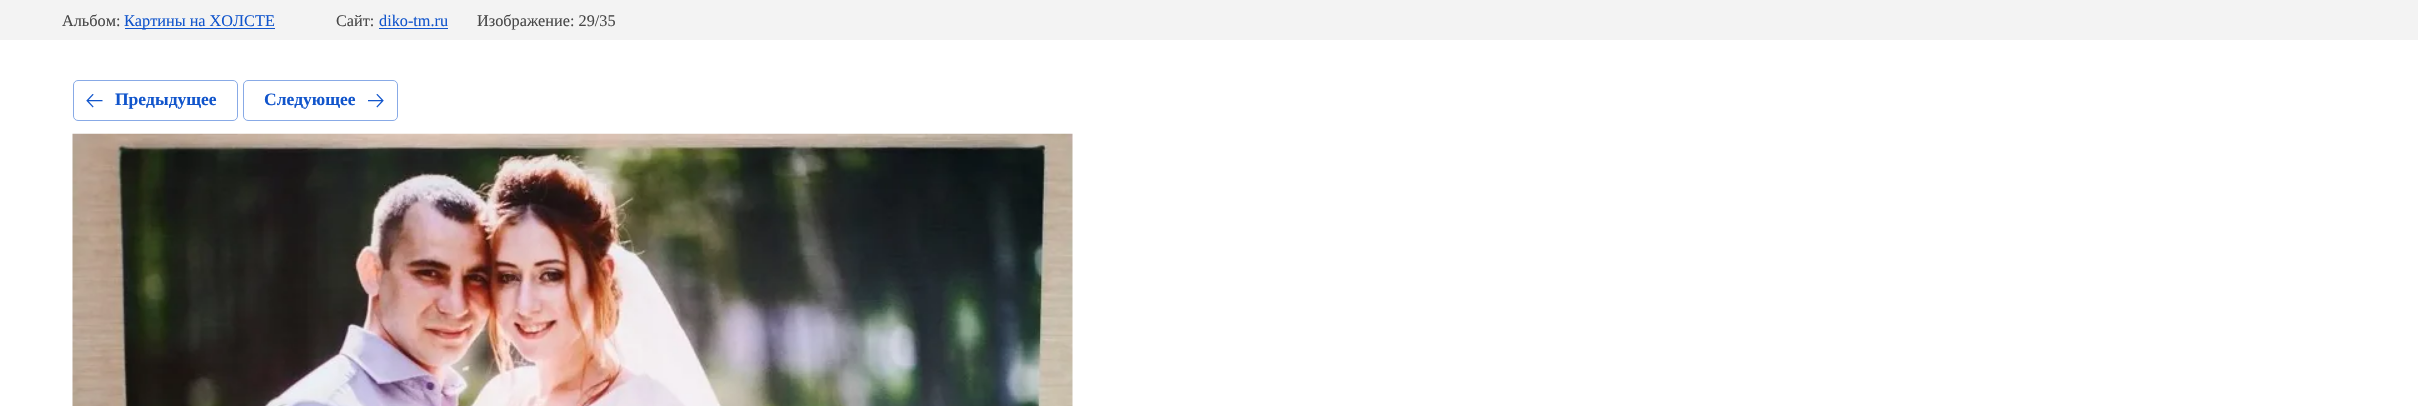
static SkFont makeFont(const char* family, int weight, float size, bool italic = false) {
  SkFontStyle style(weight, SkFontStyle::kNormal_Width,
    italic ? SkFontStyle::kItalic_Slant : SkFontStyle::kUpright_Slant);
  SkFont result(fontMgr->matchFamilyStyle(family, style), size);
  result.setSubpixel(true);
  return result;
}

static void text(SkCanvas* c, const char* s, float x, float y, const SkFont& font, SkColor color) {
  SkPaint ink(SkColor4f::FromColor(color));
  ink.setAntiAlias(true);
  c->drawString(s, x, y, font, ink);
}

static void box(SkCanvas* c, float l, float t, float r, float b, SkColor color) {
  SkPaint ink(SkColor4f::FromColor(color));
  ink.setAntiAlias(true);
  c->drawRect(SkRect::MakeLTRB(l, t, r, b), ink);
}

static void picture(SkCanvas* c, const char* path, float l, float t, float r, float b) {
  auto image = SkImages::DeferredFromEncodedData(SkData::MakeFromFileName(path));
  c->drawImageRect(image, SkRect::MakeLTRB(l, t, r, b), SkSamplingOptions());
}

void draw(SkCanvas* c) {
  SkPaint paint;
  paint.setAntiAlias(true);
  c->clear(0xffffffff);
  box(c, 0, 0, 2418, 40, 0xfff3f3f3);
  SkFont face1 = makeFont("Liberation Serif", 400, 16.25f);
  text(c, "Альбом:", 62, 26, face1, 0xff484848);
  box(c, 125, 28, 275, 29, 0xff1155cc);
  text(c, "Картины на ХОЛСТЕ", 124, 26, face1, 0xff1155cc);
  text(c, "Сайт:", 336, 26, face1, 0xff484848);
  text(c, "diko-tm.ru", 379, 26, face1, 0xff1155cc);
  box(c, 379, 28, 448, 29, 0xff1155cc);
  text(c, "Изображение: 29/35", 477, 26, face1, 0xff484848);
  paint.setStyle(SkPaint::kStroke_Style);
  paint.setStrokeWidth(1);
  paint.setColor(0xff88aae6);
  c->drawRoundRect(SkRect::MakeLTRB(73.5f, 80.5f, 237.5f, 120.5f), 4.5f, 4.5f, paint);
  picture(c, "img_01.png", 86, 94, 103, 108);
  SkFont face2 = makeFont("Liberation Serif", 700, 17.5f);
  text(c, "Предыдущее", 115, 105, face2, 0xff1155cc);
  c->drawRoundRect(SkRect::MakeLTRB(243.5f, 80.5f, 397.5f, 120.5f), 4.5f, 4.5f, paint);
  text(c, "Следующее", 264, 105, face2, 0xff1155cc);
  picture(c, "img_02.png", 368, 94, 384, 108);
  picture(c, "img_03.png", 72, 133, 1073, 406);
}
